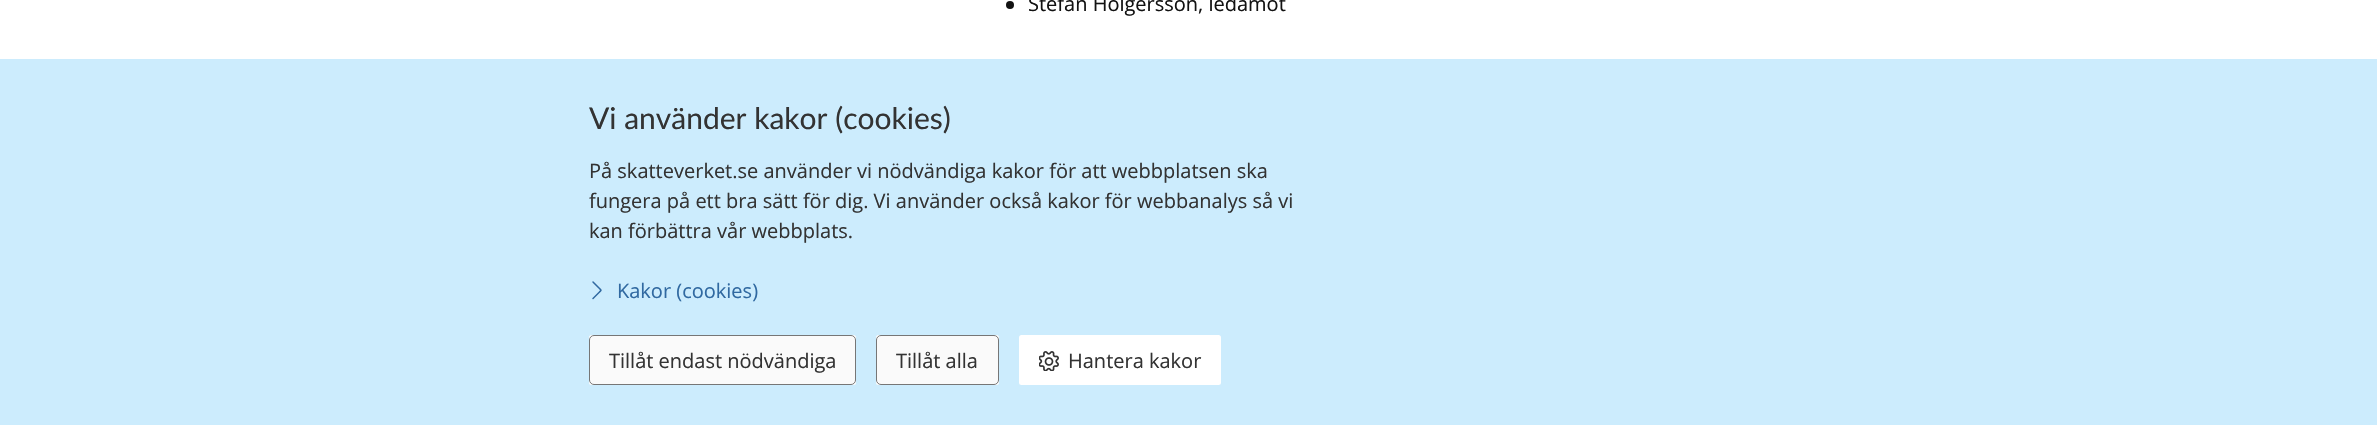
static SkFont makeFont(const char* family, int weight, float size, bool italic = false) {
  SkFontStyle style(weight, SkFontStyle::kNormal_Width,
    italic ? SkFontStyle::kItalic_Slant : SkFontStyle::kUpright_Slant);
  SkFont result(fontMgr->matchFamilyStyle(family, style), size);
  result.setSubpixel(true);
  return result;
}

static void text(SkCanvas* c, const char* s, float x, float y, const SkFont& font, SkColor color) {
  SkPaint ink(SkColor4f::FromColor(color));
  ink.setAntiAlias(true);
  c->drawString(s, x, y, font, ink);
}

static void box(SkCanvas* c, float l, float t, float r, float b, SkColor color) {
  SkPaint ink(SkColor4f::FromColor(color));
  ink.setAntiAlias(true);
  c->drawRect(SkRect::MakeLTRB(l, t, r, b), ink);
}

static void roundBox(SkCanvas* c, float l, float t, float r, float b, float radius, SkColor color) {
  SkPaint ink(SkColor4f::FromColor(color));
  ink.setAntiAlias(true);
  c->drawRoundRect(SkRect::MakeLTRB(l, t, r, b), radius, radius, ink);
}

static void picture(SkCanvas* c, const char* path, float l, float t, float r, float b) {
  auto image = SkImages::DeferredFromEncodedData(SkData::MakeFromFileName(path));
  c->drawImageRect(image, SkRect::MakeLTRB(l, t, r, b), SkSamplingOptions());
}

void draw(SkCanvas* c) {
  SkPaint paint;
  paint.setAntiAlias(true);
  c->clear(0xffffffff);
  paint.setColor(0xff121212);
  c->drawCircle(1010, 5, 4, paint);
  SkFont face1 = makeFont("Open Sans", 400, 20);
  text(c, "Stefan Holgersson, ledamot", 1028, 11, face1, 0xff121212);
  box(c, 0, 59, 2377, 425, 0xffccecfd);
  SkFont face2 = makeFont("Lato", 400, 30);
  text(c, "Vi använder kakor (cookies)", 589, 129, face2, 0xff333333);
  text(c, "På skatteverket.se använder vi nödvändiga kakor för att webbplatsen ska", 589, 178, face1, 0xff333333);
  text(c, "fungera på ett bra sätt för dig. Vi använder också kakor för webbanalys så vi", 589, 208, face1, 0xff333333);
  text(c, "kan förbättra vår webbplats.", 589, 238, face1, 0xff333333);
  paint.setStyle(SkPaint::kStroke_Style);
  paint.setStrokeWidth(1.5f);
  paint.setStrokeCap(SkPaint::kRound_Cap);
  paint.setStrokeJoin(SkPaint::kRound_Join);
  paint.setColor(0xff3069a1);
  c->drawPath(SkPathBuilder().moveTo(593, 282).lineTo(599.5f, 288.5f).cubicTo(601.5f, 290.5f, 601.5f, 290, 599.5f, 292).lineTo(593, 298.5f).detach(), paint);
  text(c, "Kakor (cookies)", 617, 298, face1, 0xff3069a1);
  roundBox(c, 589, 335, 856, 385, 2.5f, 0xffffffff);
  paint.setStyle(SkPaint::kFill_Style);
  paint.setColor(0xfffafafa);
  c->drawRoundRect(SkRect::MakeLTRB(589.5f, 335.5f, 855.5f, 384.5f), 4.5f, 4.5f, paint);
  paint.setStyle(SkPaint::kStroke_Style);
  paint.setStrokeWidth(1);
  paint.setStrokeCap(SkPaint::kButt_Cap);
  paint.setStrokeJoin(SkPaint::kMiter_Join);
  paint.setColor(0xff767676);
  c->drawRoundRect(SkRect::MakeLTRB(589.5f, 335.5f, 855.5f, 384.5f), 4.5f, 4.5f, paint);
  text(c, "Tillåt endast nödvändiga", 609, 368, face1, 0xff333333);
  roundBox(c, 876, 335, 999, 385, 2.5f, 0xffffffff);
  paint.setStyle(SkPaint::kFill_Style);
  paint.setColor(0xfffafafa);
  c->drawRoundRect(SkRect::MakeLTRB(876.5f, 335.5f, 998.5f, 384.5f), 4.5f, 4.5f, paint);
  paint.setStyle(SkPaint::kStroke_Style);
  paint.setColor(0xff767676);
  c->drawRoundRect(SkRect::MakeLTRB(876.5f, 335.5f, 998.5f, 384.5f), 4.5f, 4.5f, paint);
  text(c, "Tillåt alla", 896, 368, face1, 0xff333333);
  roundBox(c, 1019, 335, 1221, 385, 2.5f, 0xffffffff);
  picture(c, "img_01.png", 1039, 351, 1059, 371);
  text(c, "Hantera kakor", 1068, 368, face1, 0xff333333);
}
